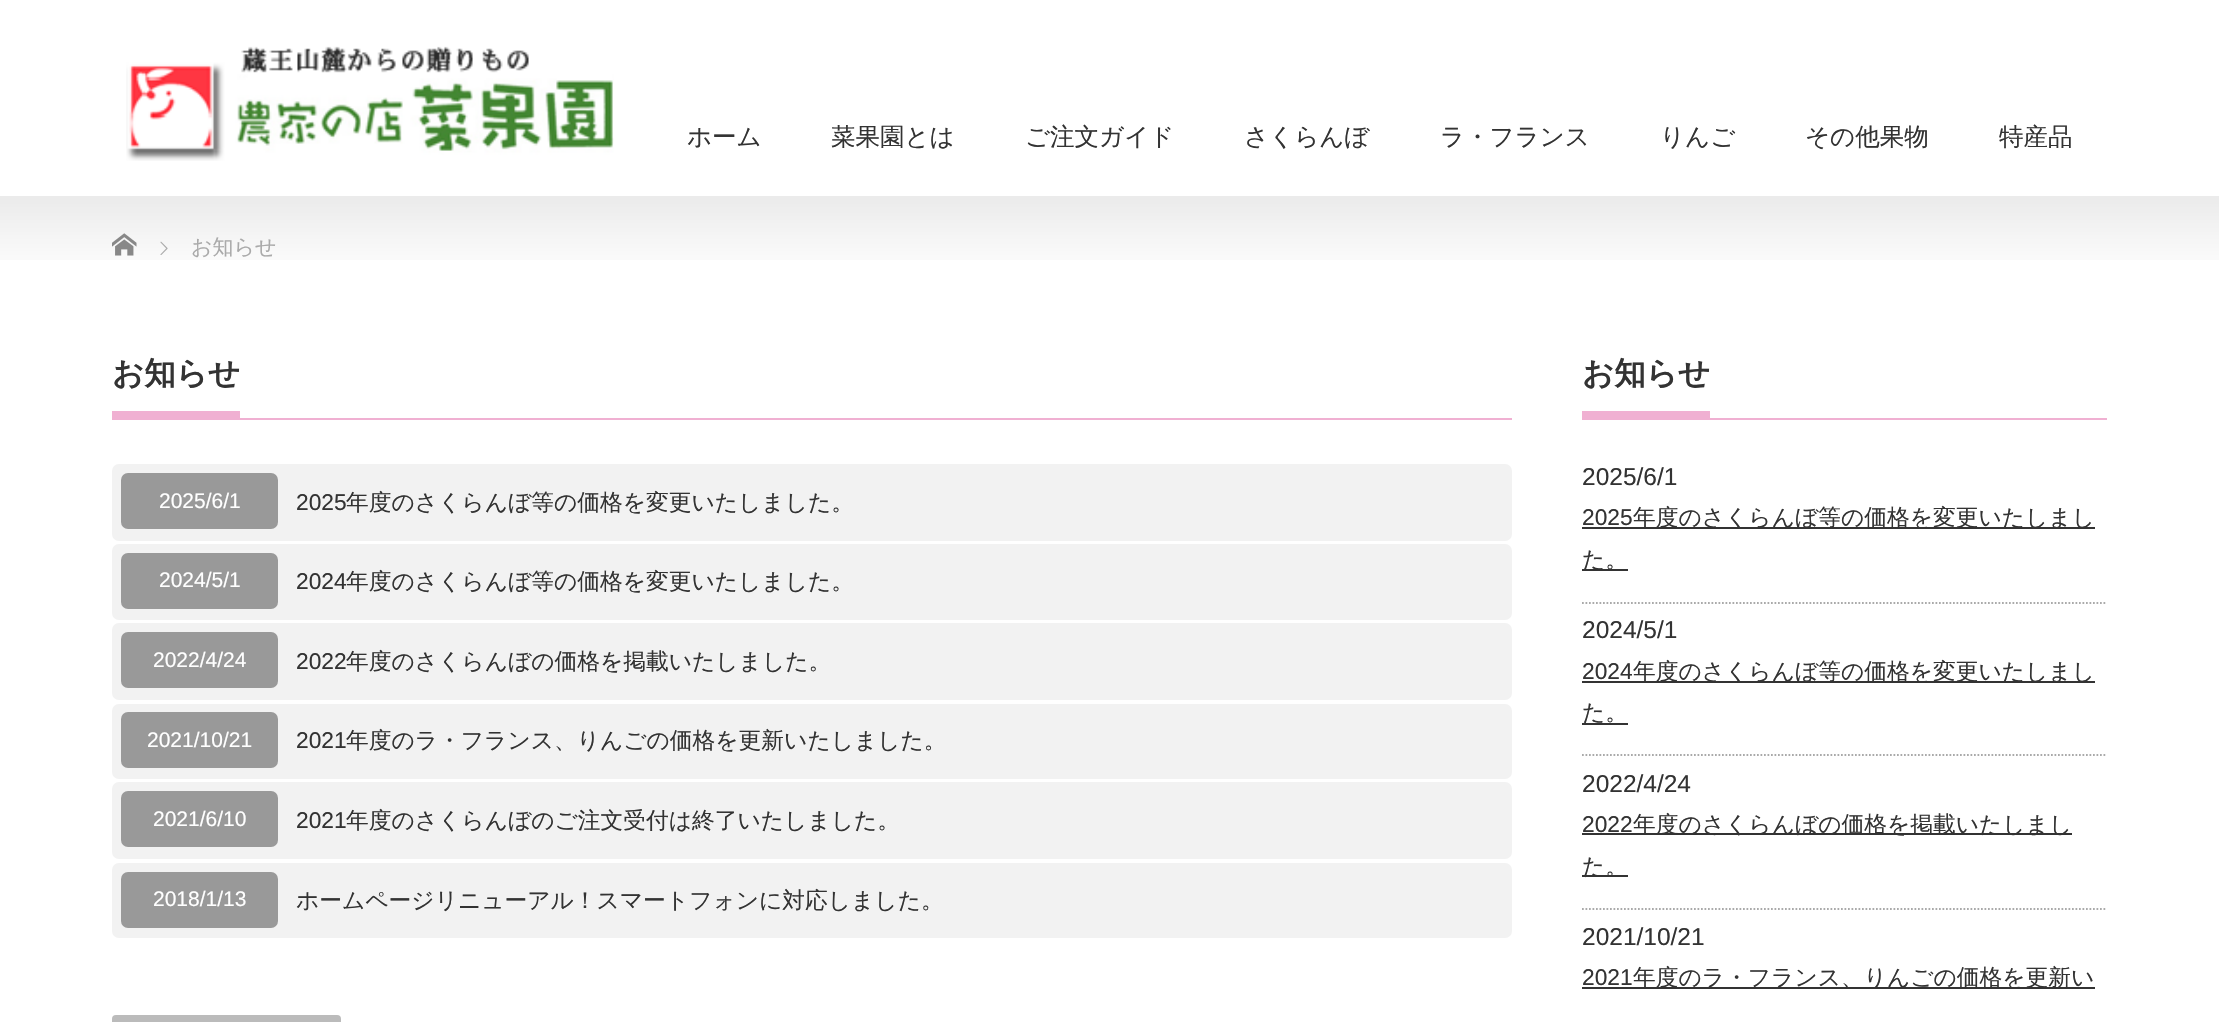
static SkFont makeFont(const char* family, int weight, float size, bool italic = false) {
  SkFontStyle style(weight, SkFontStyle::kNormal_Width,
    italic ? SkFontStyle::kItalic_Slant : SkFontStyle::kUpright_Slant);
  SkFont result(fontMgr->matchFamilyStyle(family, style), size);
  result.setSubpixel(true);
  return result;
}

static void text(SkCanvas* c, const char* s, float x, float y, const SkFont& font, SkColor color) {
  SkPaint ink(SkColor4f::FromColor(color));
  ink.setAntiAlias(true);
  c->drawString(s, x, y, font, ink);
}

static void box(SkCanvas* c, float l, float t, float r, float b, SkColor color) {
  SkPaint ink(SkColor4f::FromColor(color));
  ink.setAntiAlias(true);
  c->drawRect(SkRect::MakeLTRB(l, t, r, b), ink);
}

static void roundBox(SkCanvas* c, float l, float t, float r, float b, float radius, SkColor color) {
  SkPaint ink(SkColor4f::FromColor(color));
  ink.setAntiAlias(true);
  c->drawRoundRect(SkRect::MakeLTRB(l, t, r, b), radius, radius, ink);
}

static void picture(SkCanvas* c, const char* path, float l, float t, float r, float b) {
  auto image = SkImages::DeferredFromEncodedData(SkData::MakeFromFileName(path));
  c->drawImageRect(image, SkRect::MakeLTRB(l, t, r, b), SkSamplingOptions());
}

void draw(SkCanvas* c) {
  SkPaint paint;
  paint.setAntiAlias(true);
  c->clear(0xffffffff);
  picture(c, "img_01.png", 126, 46, 614, 161);
  SkFont face1 = makeFont("WenQuanYi Zen Hei", 500, 24.5f);
  text(c, "ホーム", 687, 145, face1, 0xff333333);
  text(c, "菜果園とは", 831, 145, face1, 0xff333333);
  text(c, "ご注文ガイド", 1025, 145, face1, 0xff333333);
  text(c, "さくらんぼ", 1244, 145, face1, 0xff333333);
  text(c, "ラ・フランス", 1440, 145, face1, 0xff333333);
  text(c, "りんご", 1660, 145, face1, 0xff333333);
  text(c, "その他果物", 1805, 145, face1, 0xff333333);
  text(c, "特産品", 1999, 145, face1, 0xff333333);
  picture(c, "img_02.png", 0, 196, 2219, 260);
  picture(c, "img_03.png", 112, 233, 137, 256);
  picture(c, "img_04.png", 160, 241, 168, 255);
  SkFont face2 = makeFont("WenQuanYi Zen Hei", 500, 21);
  text(c, "お知らせ", 191, 254, face2, 0xffaaaaaa);
  box(c, 112, 418, 1512, 420, 0xfff0b0d2);
  box(c, 112, 411, 240, 418, 0xfff0b0d2);
  SkFont face3 = makeFont("WenQuanYi Zen Hei", 700, 31.5f);
  text(c, "お知らせ", 112, 384, face3, 0xff333333);
  roundBox(c, 112, 464, 1512, 541, 7, 0xfff2f2f2);
  roundBox(c, 121, 473, 278, 529, 7, 0xff999999);
  SkFont face4 = makeFont("Liberation Sans", 400, 21);
  text(c, "2025/6/1", 159, 508, face4, 0xffffffff);
  SkFont face5 = makeFont("Liberation Sans", 400, 22.75f);
  text(c, "2025", 296, 510, face5, 0xff333333);
  SkFont face6 = makeFont("WenQuanYi Zen Hei", 500, 22.75f);
  text(c, "年度のさくらんぼ等の価格を変更いたしました。", 346, 510, face6, 0xff333333);
  roundBox(c, 112, 544, 1512, 620, 7, 0xfff2f2f2);
  roundBox(c, 121, 553, 278, 609, 7, 0xff999999);
  text(c, "2024/5/1", 159, 587, face4, 0xffffffff);
  text(c, "2024", 296, 589, face5, 0xff333333);
  text(c, "年度のさくらんぼ等の価格を変更いたしました。", 346, 589, face6, 0xff333333);
  roundBox(c, 112, 623, 1512, 700, 7, 0xfff2f2f2);
  roundBox(c, 121, 632, 278, 688, 7, 0xff999999);
  text(c, "2022/4/24", 153, 667, face4, 0xffffffff);
  text(c, "2022", 296, 669, face5, 0xff333333);
  text(c, "年度のさくらんぼの価格を掲載いたしました。", 346, 669, face6, 0xff333333);
  roundBox(c, 112, 704, 1512, 779, 7, 0xfff2f2f2);
  roundBox(c, 121, 712, 278, 768, 7, 0xff999999);
  text(c, "2021/10/21", 147, 747, face4, 0xffffffff);
  text(c, "2021", 296, 748, face5, 0xff333333);
  text(c, "年度のラ・フランス、りんごの価格を更新いたしました。", 346, 748, face6, 0xff333333);
  roundBox(c, 112, 782, 1512, 859, 7, 0xfff2f2f2);
  roundBox(c, 121, 791, 278, 847, 7, 0xff999999);
  text(c, "2021/6/10", 153, 826, face4, 0xffffffff);
  text(c, "2021", 296, 828, face5, 0xff333333);
  text(c, "年度のさくらんぼのご注文受付は終了いたしました。", 346, 828, face6, 0xff333333);
  roundBox(c, 112, 863, 1512, 938, 7, 0xfff2f2f2);
  roundBox(c, 121, 872, 278, 928, 7, 0xff999999);
  text(c, "2018/1/13", 153, 906, face4, 0xffffffff);
  text(c, "ホームページリニューアル！スマートフォンに対応しました。", 296, 908, face6, 0xff333333);
  roundBox(c, 112, 1015, 341, 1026, 4, 0xffbbbbbb);
  box(c, 1582, 418, 2107, 420, 0xfff0b0d2);
  box(c, 1582, 411, 1710, 418, 0xfff0b0d2);
  text(c, "お知らせ", 1582, 384, face3, 0xff333333);
  paint.setStyle(SkPaint::kStroke_Style);
  paint.setStrokeWidth(1.8f);
  paint.setColor(0xffaaaaaa);
  paint.setPathEffect(SkDashPathEffect::Make({{1.75f, 1.75f}}, 0));
  c->drawPath(SkPathBuilder().moveTo(1582, 603).lineTo(2107, 603).detach(), paint);
  paint.setPathEffect(nullptr);
  SkFont face7 = makeFont("Liberation Sans", 400, 24.5f);
  text(c, "2025/6/1", 1582, 485, face7, 0xff333333);
  text(c, "2025", 1582, 525, face5, 0xff333333);
  box(c, 1582, 527, 2095, 529, 0xff333333);
  text(c, "年度のさくらんぼ等の価格を変更いたしまし", 1633, 525, face6, 0xff333333);
  box(c, 1582, 569, 1628, 571, 0xff333333);
  text(c, "た。", 1582, 567, face6, 0xff333333);
  paint.setPathEffect(SkDashPathEffect::Make({{1.75f, 1.75f}}, 0));
  c->drawPath(SkPathBuilder().moveTo(1582, 755).lineTo(2107, 755).detach(), paint);
  paint.setPathEffect(nullptr);
  text(c, "2024/5/1", 1582, 638, face7, 0xff333333);
  text(c, "2024", 1582, 679, face5, 0xff333333);
  box(c, 1582, 681, 2095, 683, 0xff333333);
  text(c, "年度のさくらんぼ等の価格を変更いたしまし", 1633, 679, face6, 0xff333333);
  box(c, 1582, 723, 1628, 725, 0xff333333);
  text(c, "た。", 1582, 720, face6, 0xff333333);
  paint.setPathEffect(SkDashPathEffect::Make({{1.75f, 1.75f}}, 0));
  c->drawPath(SkPathBuilder().moveTo(1582, 909).lineTo(2107, 909).detach(), paint);
  paint.setPathEffect(nullptr);
  text(c, "2022/4/24", 1582, 792, face7, 0xff333333);
  text(c, "2022", 1582, 832, face5, 0xff333333);
  box(c, 1582, 833, 2072, 835, 0xff333333);
  text(c, "年度のさくらんぼの価格を掲載いたしまし", 1633, 832, face6, 0xff333333);
  box(c, 1582, 875, 1628, 877, 0xff333333);
  text(c, "た。", 1582, 874, face6, 0xff333333);
  text(c, "2021/10/21", 1582, 945, face7, 0xff333333);
  text(c, "2021", 1582, 985, face5, 0xff333333);
  box(c, 1582, 987, 2095, 989, 0xff333333);
  text(c, "年度のラ・フランス、りんごの価格を更新い", 1633, 985, face6, 0xff333333);
}
